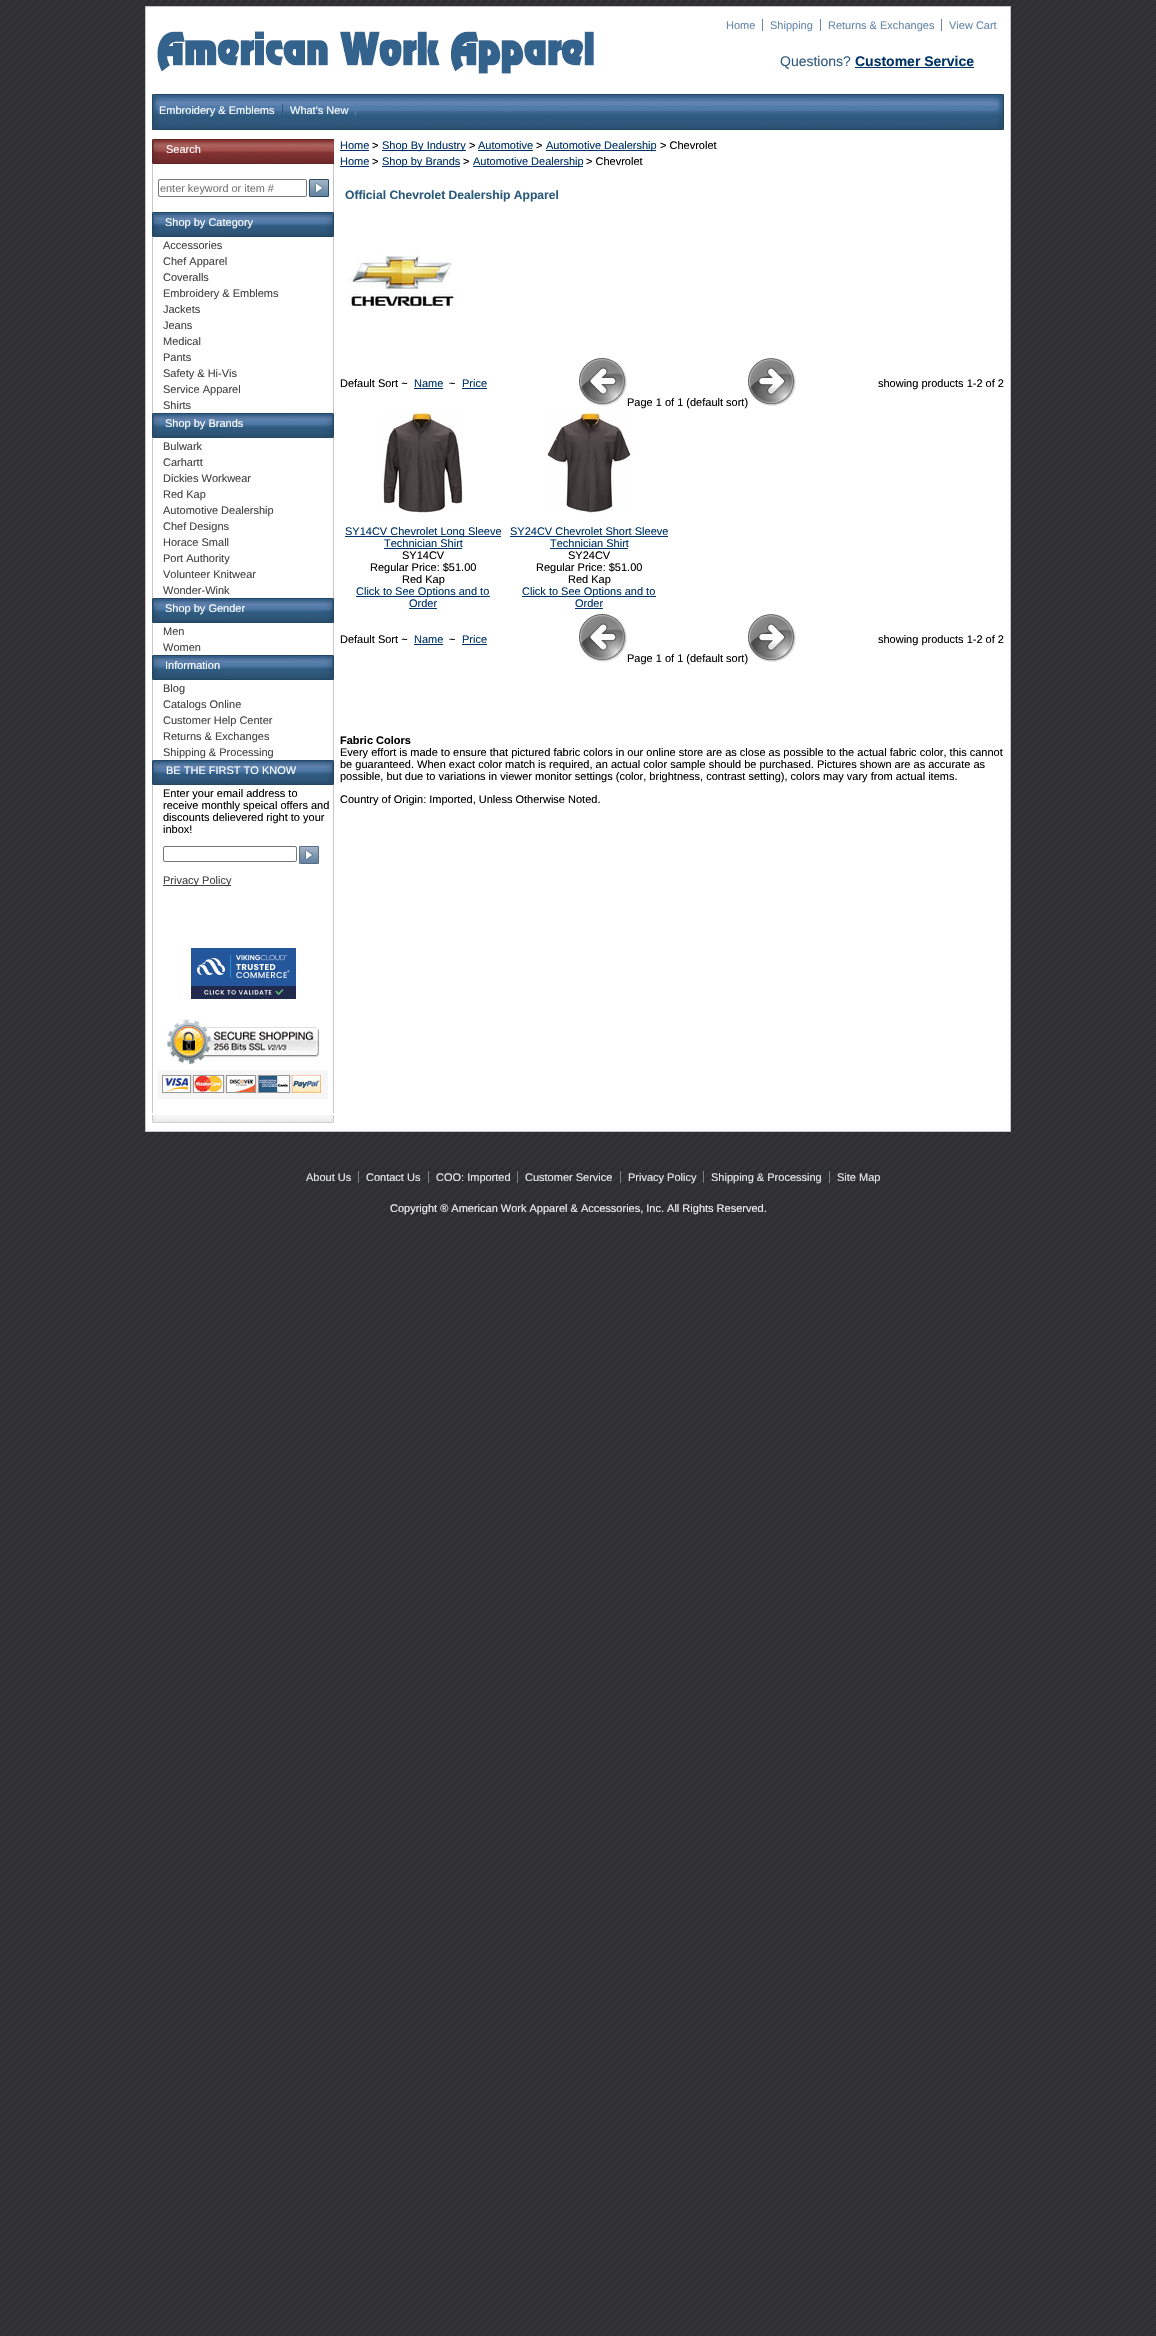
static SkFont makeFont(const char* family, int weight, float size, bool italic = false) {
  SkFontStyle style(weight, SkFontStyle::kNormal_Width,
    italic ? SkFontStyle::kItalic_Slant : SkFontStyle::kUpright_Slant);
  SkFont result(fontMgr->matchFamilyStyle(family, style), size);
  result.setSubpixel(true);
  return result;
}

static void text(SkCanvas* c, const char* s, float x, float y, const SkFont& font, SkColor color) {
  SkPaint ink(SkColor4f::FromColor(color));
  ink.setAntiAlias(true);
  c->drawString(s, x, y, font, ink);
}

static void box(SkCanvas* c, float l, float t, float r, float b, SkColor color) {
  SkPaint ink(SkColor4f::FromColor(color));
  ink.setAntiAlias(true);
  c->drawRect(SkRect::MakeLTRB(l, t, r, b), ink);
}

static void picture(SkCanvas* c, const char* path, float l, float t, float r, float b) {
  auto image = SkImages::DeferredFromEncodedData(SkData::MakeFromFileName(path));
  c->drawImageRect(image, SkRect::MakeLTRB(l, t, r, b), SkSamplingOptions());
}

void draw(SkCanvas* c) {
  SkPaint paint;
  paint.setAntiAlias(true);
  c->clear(0xffffffff);
  picture(c, "img_01.png", 0, 0, 1156, 2336);
  paint.setColor(0xffffffff);
  c->drawRect(SkRect::MakeLTRB(145.5f, 6.5f, 1010.5f, 1131.5f), paint);
  paint.setStyle(SkPaint::kStroke_Style);
  paint.setStrokeWidth(1);
  paint.setColor(0xffc6c6c6);
  c->drawRect(SkRect::MakeLTRB(145.5f, 6.5f, 1010.5f, 1131.5f), paint);
  SkFont face1 = makeFont("Liberation Sans", 400, 11);
  text(c, "Home", 726, 29, face1, 0xff6687a9);
  box(c, 762, 19, 763, 31, 0xff6687a9);
  text(c, "Shipping", 770, 29, face1, 0xff6687a9);
  box(c, 820, 19, 821, 31, 0xff6687a9);
  text(c, "Returns & Exchanges", 828, 29, face1, 0xff6687a9);
  box(c, 941, 19, 942, 31, 0xff6687a9);
  text(c, "View Cart", 949, 29, face1, 0xff6687a9);
  picture(c, "img_02.png", 157, 31, 594, 74);
  SkFont face2 = makeFont("Liberation Sans", 400, 14);
  text(c, "Questions?", 780, 66, face2, 0xff2f597d);
  SkFont face3 = makeFont("Liberation Sans", 700, 14);
  text(c, "Customer Service", 855, 66, face3, 0xff003366);
  box(c, 855, 67, 974, 68, 0xff003366);
  picture(c, "img_03.png", 152, 94, 1004, 130);
  picture(c, "img_04.png", 152, 94, 160, 127);
  text(c, "Embroidery & Emblems", 159, 114, face1, 0xffffffff);
  text(c, "What's New", 290, 114, face1, 0xffffffff);
  box(c, 355, 104, 356, 116, 0xff5a7ba4);
  box(c, 282, 104, 283, 116, 0xff345678);
  picture(c, "img_05.png", 165, 139, 334, 164);
  picture(c, "img_06.png", 152, 139, 165, 164);
  text(c, "Search", 166, 153, face1, 0xffffffff);
  box(c, 333, 164, 334, 212, 0xffc6c6c6);
  box(c, 152, 164, 153, 212, 0xffc6c6c6);
  paint.setColor(0xff767676);
  c->drawRoundRect(SkRect::MakeLTRB(158.5f, 179.5f, 306.5f, 196.5f), 1.5f, 1.5f, paint);
  SkFont face4 = makeFont("Liberation Sans", 400, 10.9f);
  text(c, "enter keyword or item #", 160, 192, face4, 0xff757575);
  picture(c, "img_07.png", 308, 179, 329, 197);
  picture(c, "img_08.png", 160, 212, 334, 237);
  picture(c, "img_09.png", 152, 212, 160, 237);
  text(c, "Shop by Category", 165, 226, face1, 0xffffffff);
  box(c, 333, 237, 334, 413, 0xffc6c6c6);
  box(c, 152, 237, 153, 413, 0xffc6c6c6);
  text(c, "Accessories", 163, 249, face1, 0xff424242);
  text(c, "Chef Apparel", 163, 265, face1, 0xff424242);
  text(c, "Coveralls", 163, 281, face1, 0xff424242);
  text(c, "Embroidery & Emblems", 163, 297, face1, 0xff424242);
  text(c, "Jackets", 163, 313, face1, 0xff424242);
  text(c, "Jeans", 163, 329, face1, 0xff424242);
  text(c, "Medical", 163, 345, face1, 0xff424242);
  text(c, "Pants", 163, 361, face1, 0xff424242);
  text(c, "Safety & Hi-Vis", 163, 377, face1, 0xff424242);
  text(c, "Service Apparel", 163, 393, face1, 0xff424242);
  text(c, "Shirts", 163, 409, face1, 0xff424242);
  picture(c, "img_08.png", 160, 413, 334, 438);
  picture(c, "img_09.png", 152, 413, 160, 438);
  text(c, "Shop by Brands", 165, 427, face1, 0xffffffff);
  box(c, 333, 438, 334, 598, 0xffc6c6c6);
  box(c, 152, 438, 153, 598, 0xffc6c6c6);
  text(c, "Bulwark", 163, 450, face1, 0xff424242);
  text(c, "Carhartt", 163, 466, face1, 0xff424242);
  text(c, "Dickies Workwear", 163, 482, face1, 0xff424242);
  text(c, "Red Kap", 163, 498, face1, 0xff424242);
  text(c, "Automotive Dealership", 163, 514, face1, 0xff424242);
  text(c, "Chef Designs", 163, 530, face1, 0xff424242);
  text(c, "Horace Small", 163, 546, face1, 0xff424242);
  text(c, "Port Authority", 163, 562, face1, 0xff424242);
  text(c, "Volunteer Knitwear", 163, 578, face1, 0xff424242);
  text(c, "Wonder-Wink", 163, 594, face1, 0xff424242);
  picture(c, "img_08.png", 160, 598, 334, 623);
  picture(c, "img_09.png", 152, 598, 160, 623);
  text(c, "Shop by Gender", 165, 612, face1, 0xffffffff);
  box(c, 333, 623, 334, 655, 0xffc6c6c6);
  box(c, 152, 623, 153, 655, 0xffc6c6c6);
  text(c, "Men", 163, 635, face1, 0xff424242);
  text(c, "Women", 163, 651, face1, 0xff424242);
  picture(c, "img_08.png", 160, 655, 334, 680);
  picture(c, "img_09.png", 152, 655, 160, 680);
  text(c, "Information", 165, 669, face1, 0xffffffff);
  box(c, 333, 680, 334, 760, 0xffc6c6c6);
  box(c, 152, 680, 153, 760, 0xffc6c6c6);
  text(c, "Blog", 163, 692, face1, 0xff424242);
  text(c, "Catalogs Online", 163, 708, face1, 0xff424242);
  text(c, "Customer Help Center", 163, 724, face1, 0xff424242);
  text(c, "Returns & Exchanges", 163, 740, face1, 0xff424242);
  text(c, "Shipping & Processing", 163, 756, face1, 0xff424242);
  picture(c, "img_08.png", 160, 760, 334, 785);
  picture(c, "img_09.png", 152, 760, 160, 785);
  text(c, "BE THE FIRST TO KNOW", 166, 774, face1, 0xffffffff);
  box(c, 333, 785, 334, 1113, 0xffc6c6c6);
  box(c, 152, 785, 153, 1113, 0xffc6c6c6);
  text(c, "Enter your email address to", 163, 797, face1, 0xff000000);
  text(c, "receive monthly speical offers and", 163, 809, face1, 0xff000000);
  text(c, "discounts delievered right to your", 163, 821, face1, 0xff000000);
  text(c, "inbox!", 163, 833, face1, 0xff000000);
  c->drawRoundRect(SkRect::MakeLTRB(163.5f, 846.5f, 296.5f, 861.5f), 1.5f, 1.5f, paint);
  picture(c, "img_10.png", 299, 846, 319, 864);
  box(c, 163, 885, 231, 886, 0xff424242);
  text(c, "Privacy Policy", 163, 884, face1, 0xff424242);
  picture(c, "img_11.png", 191, 948, 296, 999);
  picture(c, "img_12.png", 166, 1019, 320, 1065);
  picture(c, "img_13.png", 158, 1070, 328, 1099);
  picture(c, "img_14.png", 152, 1115, 334, 1123);
  text(c, "Home", 340, 149, face1, 0xff003366);
  box(c, 340, 150, 369, 151, 0xff003366);
  text(c, ">", 372, 149, face1, 0xff000000);
  box(c, 382, 150, 466, 151, 0xff003366);
  text(c, "Shop By Industry", 382, 149, face1, 0xff003366);
  text(c, ">", 469, 149, face1, 0xff000000);
  text(c, "Automotive", 478, 149, face1, 0xff003366);
  box(c, 478, 150, 533, 151, 0xff003366);
  text(c, ">", 536, 149, face1, 0xff000000);
  box(c, 546, 150, 656, 151, 0xff003366);
  text(c, "Automotive Dealership", 546, 149, face1, 0xff003366);
  text(c, "> Chevrolet", 660, 149, face1, 0xff000000);
  text(c, "Home", 340, 165, face1, 0xff003366);
  box(c, 340, 166, 369, 167, 0xff003366);
  text(c, ">", 372, 165, face1, 0xff000000);
  box(c, 382, 166, 460, 167, 0xff003366);
  text(c, "Shop by Brands", 382, 165, face1, 0xff003366);
  text(c, ">", 463, 165, face1, 0xff000000);
  box(c, 473, 166, 583, 167, 0xff003366);
  text(c, "Automotive Dealership", 473, 165, face1, 0xff003366);
  text(c, "> Chevrolet", 586, 165, face1, 0xff000000);
  SkFont face5 = makeFont("Liberation Sans", 700, 12.1f);
  text(c, "Official Chevrolet Dealership Apparel", 345, 199, face5, 0xff295a7b);
  picture(c, "img_15.png", 348, 251, 460, 307);
  text(c, "Default Sort ~", 340, 387, face1, 0xff000000);
  text(c, "Name", 414, 387, face1, 0xff003366);
  box(c, 414, 388, 443, 389, 0xff003366);
  text(c, "~", 449, 387, face1, 0xff000000);
  text(c, "Price", 462, 387, face1, 0xff003366);
  box(c, 462, 388, 487, 389, 0xff003366);
  text(c, "showing products 1-2 of 2", 878, 387, face1, 0xff000000);
  picture(c, "img_16.png", 579, 358, 627, 406);
  text(c, "Page 1 of 1 (default sort)", 627, 406, face1, 0xff000000);
  picture(c, "img_17.png", 748, 358, 796, 406);
  picture(c, "img_18.png", 382, 413, 463, 513);
  picture(c, "img_19.png", 547, 413, 631, 513);
  box(c, 345, 536, 501, 537, 0xff003366);
  text(c, "SY14CV Chevrolet Long Sleeve", 345, 535, face1, 0xff003366);
  text(c, "Technician Shirt", 384, 547, face1, 0xff003366);
  box(c, 384, 548, 462, 549, 0xff003366);
  text(c, "SY14CV", 402, 559, face1, 0xff000000);
  text(c, "Regular Price: $51.00", 370, 571, face1, 0xff000000);
  text(c, "Red Kap", 402, 583, face1, 0xff000000);
  box(c, 356, 596, 490, 597, 0xff003366);
  text(c, "Click to See Options and to", 356, 595, face1, 0xff003366);
  text(c, "Order", 409, 607, face1, 0xff003366);
  box(c, 409, 608, 437, 609, 0xff003366);
  text(c, "SY24CV Chevrolet Short Sleeve", 510, 535, face1, 0xff003366);
  box(c, 510, 536, 668, 537, 0xff003366);
  text(c, "Technician Shirt", 550, 547, face1, 0xff003366);
  box(c, 550, 548, 628, 549, 0xff003366);
  text(c, "SY24CV", 568, 559, face1, 0xff000000);
  text(c, "Regular Price: $51.00", 536, 571, face1, 0xff000000);
  text(c, "Red Kap", 568, 583, face1, 0xff000000);
  box(c, 522, 596, 656, 597, 0xff003366);
  text(c, "Click to See Options and to", 522, 595, face1, 0xff003366);
  text(c, "Order", 575, 607, face1, 0xff003366);
  box(c, 575, 608, 603, 609, 0xff003366);
  text(c, "Default Sort ~", 340, 643, face1, 0xff000000);
  text(c, "Name", 414, 643, face1, 0xff003366);
  box(c, 414, 644, 443, 645, 0xff003366);
  text(c, "~", 449, 643, face1, 0xff000000);
  text(c, "Price", 462, 643, face1, 0xff003366);
  box(c, 462, 644, 487, 645, 0xff003366);
  text(c, "showing products 1-2 of 2", 878, 643, face1, 0xff000000);
  picture(c, "img_16.png", 579, 614, 627, 662);
  text(c, "Page 1 of 1 (default sort)", 627, 662, face1, 0xff000000);
  picture(c, "img_17.png", 748, 614, 796, 662);
  SkFont face6 = makeFont("Liberation Sans", 700, 11);
  text(c, "Fabric Colors", 340, 744, face6, 0xff000000);
  text(c, "Every effort is made to ensure that pictured fabric colors in our online store are as close as possible to the actual fabric color, this cannot", 340, 756, face1, 0xff000000);
  text(c, "be guaranteed. When exact color match is required, an actual color sample should be purchased. Pictures shown are as accurate as", 340, 768, face1, 0xff000000);
  text(c, "possible, but due to variations in viewer monitor settings (color, brightness, contrast setting), colors may vary from actual items.", 340, 780, face1, 0xff000000);
  text(c, "Country of Origin: Imported, Unless Otherwise Noted.", 340, 803, face1, 0xff000000);
  text(c, "About Us", 306, 1181, face1, 0xffe7eaea);
  box(c, 358, 1171, 359, 1183, 0xff758483);
  text(c, "Contact Us", 366, 1181, face1, 0xffe7eaea);
  box(c, 428, 1171, 429, 1183, 0xff758483);
  text(c, "COO: Imported", 436, 1181, face1, 0xffe7eaea);
  box(c, 517, 1171, 518, 1183, 0xff758483);
  text(c, "Customer Service", 525, 1181, face1, 0xffe7eaea);
  box(c, 620, 1171, 621, 1183, 0xff758483);
  text(c, "Privacy Policy", 628, 1181, face1, 0xffe7eaea);
  box(c, 703, 1171, 704, 1183, 0xff758483);
  text(c, "Shipping & Processing", 711, 1181, face1, 0xffe7eaea);
  box(c, 829, 1171, 830, 1183, 0xff758483);
  text(c, "Site Map", 837, 1181, face1, 0xffe7eaea);
  text(c, "Copyright ® American Work Apparel & Accessories, Inc. All Rights Reserved.", 390, 1212, face1, 0xfff2f2f2);
}
